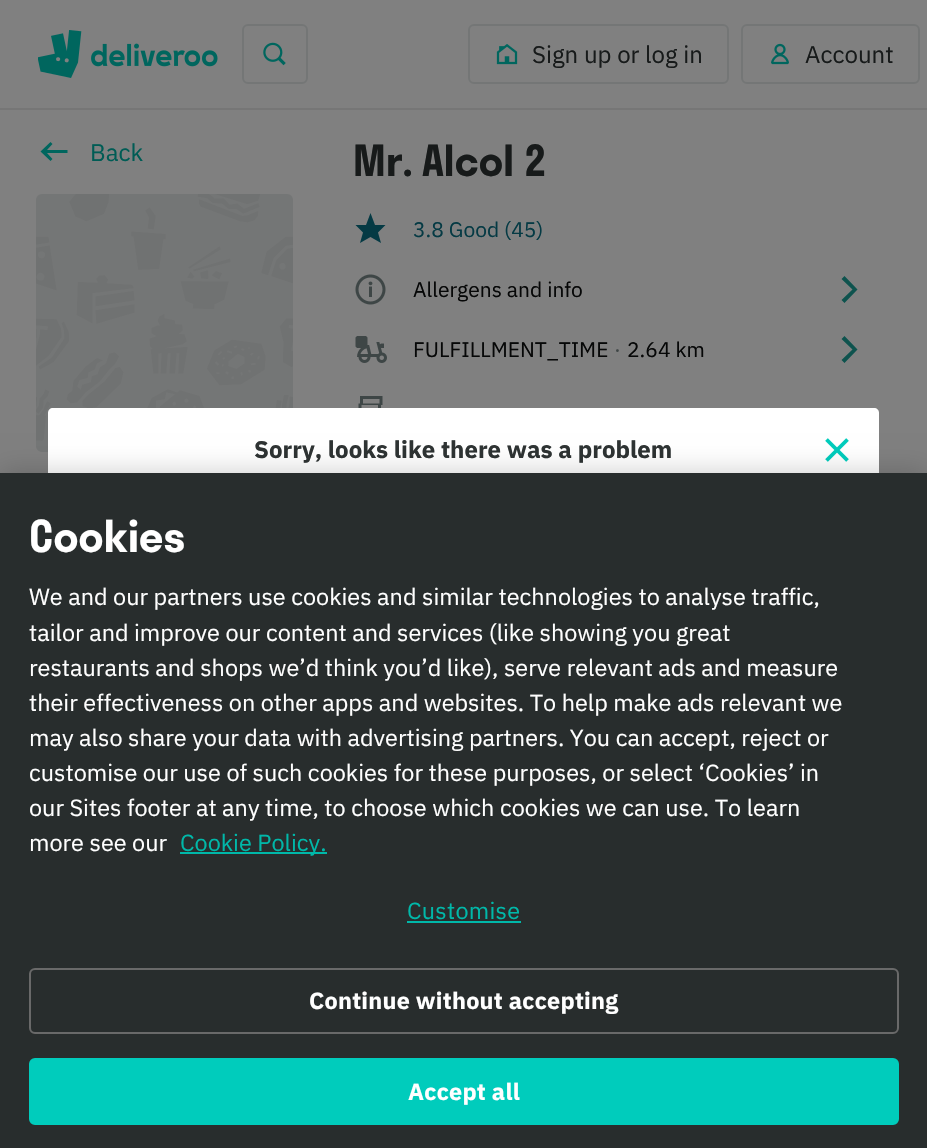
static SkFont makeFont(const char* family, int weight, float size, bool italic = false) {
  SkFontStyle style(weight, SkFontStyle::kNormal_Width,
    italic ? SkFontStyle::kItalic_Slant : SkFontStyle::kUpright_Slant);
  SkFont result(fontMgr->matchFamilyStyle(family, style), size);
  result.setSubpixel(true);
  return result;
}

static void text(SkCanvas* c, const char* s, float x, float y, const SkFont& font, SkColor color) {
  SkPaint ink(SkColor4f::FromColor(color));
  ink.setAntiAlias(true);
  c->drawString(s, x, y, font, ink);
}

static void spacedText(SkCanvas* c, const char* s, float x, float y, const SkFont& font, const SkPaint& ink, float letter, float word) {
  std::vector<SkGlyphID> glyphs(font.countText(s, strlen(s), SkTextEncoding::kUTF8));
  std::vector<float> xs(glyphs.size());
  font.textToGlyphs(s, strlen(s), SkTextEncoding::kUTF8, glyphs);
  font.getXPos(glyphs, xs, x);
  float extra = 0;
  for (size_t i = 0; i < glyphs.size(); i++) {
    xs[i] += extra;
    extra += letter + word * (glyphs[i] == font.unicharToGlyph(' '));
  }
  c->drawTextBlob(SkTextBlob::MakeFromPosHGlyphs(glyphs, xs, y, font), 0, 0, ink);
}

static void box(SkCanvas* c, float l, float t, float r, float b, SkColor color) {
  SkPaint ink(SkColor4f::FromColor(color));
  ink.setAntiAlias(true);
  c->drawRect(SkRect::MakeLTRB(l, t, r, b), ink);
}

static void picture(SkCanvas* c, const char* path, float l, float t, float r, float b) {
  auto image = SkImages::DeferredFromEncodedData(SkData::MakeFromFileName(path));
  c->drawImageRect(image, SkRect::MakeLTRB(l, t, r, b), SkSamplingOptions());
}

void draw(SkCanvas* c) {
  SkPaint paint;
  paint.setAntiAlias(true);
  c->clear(0xff808080);
  box(c, 0, 108, 927, 110, 0xff767676);
  picture(c, "img_01.png", 38, 30, 218, 78);
  paint.setStyle(SkPaint::kStroke_Style);
  paint.setStrokeWidth(2);
  paint.setColor(0xff747676);
  c->drawRoundRect(SkRect::MakeLTRB(243, 25, 307, 83), 5, 5, paint);
  picture(c, "img_02.png", 263, 42, 286, 66);
  c->drawRoundRect(SkRect::MakeLTRB(469, 25, 728, 83), 5, 5, paint);
  picture(c, "img_03.png", 496, 44, 518, 65);
  SkFont face1 = makeFont("IBM Plex Sans", 400, 24);
  text(c, "Sign up or log in", 532, 63, face1, 0xff171a1a);
  c->drawRoundRect(SkRect::MakeLTRB(742, 25, 919, 83), 5, 5, paint);
  picture(c, "img_04.png", 771, 43, 789, 65);
  text(c, "Account", 805, 63, face1, 0xff171a1a);
  paint.setStyle(SkPaint::kFill_Style);
  paint.setColor(0xff00665e);
  c->drawPath(SkPathBuilder().moveTo(50.5f, 142).lineTo(52.5f, 144).lineTo(47, 150).lineTo(67.5f, 150).lineTo(67.5f, 153).lineTo(47, 153).lineTo(52.5f, 159).lineTo(50.5f, 161).lineTo(40.5f, 151.5f).close().detach(), paint);
  text(c, "Back", 90, 161, face1, 0xff005c55);
  picture(c, "img_05.png", 36, 194, 293, 452);
  SkFont face2 = makeFont("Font", 600, 42);
  text(c, "Mr. Alcol 2", 353, 176, face2, 0xff171a1a);
  paint.setColor(0xff053a44);
  c->drawPath(SkPathBuilder().moveTo(370.5f, 213).lineTo(366, 225).lineTo(355.5f, 225).lineTo(363, 232.5f).lineTo(360, 243).lineTo(370.5f, 237).lineTo(381, 243).lineTo(378, 232.5f).lineTo(385.5f, 225).lineTo(375, 225).close().detach(), paint);
  SkFont face3 = makeFont("IBM Plex Sans", 400, 21);
  text(c, "3.8 Good (45)", 413, 237, face3, 0xff053a44);
  picture(c, "img_06.png", 355, 274, 386, 305);
  text(c, "Allergens and info", 413, 297, face3, 0xff060707);
  paint.setColor(0xff0e534e);
  c->drawPath(SkPathBuilder().moveTo(841.5f, 300).lineTo(844.5f, 303).lineTo(857.5f, 289.5f).lineTo(844.5f, 276).lineTo(841.5f, 279).lineTo(852.5f, 289.5f).close().detach(), paint);
  picture(c, "img_07.png", 355, 336, 387, 363);
  text(c, "FULFILLMENT_TIME", 413, 357, face3, 0xff060707);
  text(c, "·", 614, 357, face3, 0xff3f4646);
  text(c, "2.64 km", 627, 357, face3, 0xff060707);
  c->drawPath(SkPathBuilder().moveTo(841.5f, 360).lineTo(844.5f, 363).lineTo(857.5f, 349.5f).lineTo(844.5f, 336).lineTo(841.5f, 339).lineTo(852.5f, 349.5f).close().detach(), paint);
  picture(c, "img_08.png", 358, 396, 383, 408);
  paint.setColor(0xffffffff);
  c->drawPath(SkPathBuilder().moveTo(53, 408).lineTo(874, 408).cubicTo(877, 408, 879, 410, 879, 413).lineTo(879, 494).lineTo(48, 494).lineTo(48, 413).cubicTo(48, 410, 50, 408, 53, 408).close().detach(), paint);
  SkFont face4 = makeFont("IBM Plex Sans", 700, 24);
  text(c, "Sorry, looks like there was a problem", 254, 458, face4, 0xff2e3333);
  picture(c, "img_09.png", 825, 438, 849, 462);
  paint.setColor(0x33000000);
  paint.setMaskFilter(SkMaskFilter::MakeBlur(kNormal_SkBlurStyle, 13.5f));
  c->drawRect(SkRect::MakeLTRB(0, 473, 927, 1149), paint);
  paint.setMaskFilter(nullptr);
  box(c, 0, 473, 927, 1148, 0xff282d2d);
  SkFont face5 = makeFont("Font", 600, 43);
  text(c, "Cookies", 29, 552, face5, 0xffffffff);
  SkFont face6 = makeFont("IBM Plex Sans", 400, 23.4f);
  text(c, "We and our partners use cookies and similar technologies to analyse traffic,", 29, 605, face6, 0xffffffff);
  text(c, "tailor and improve our content and services (like showing you great", 29, 641, face6, 0xffffffff);
  text(c, "restaurants and shops we’d think you’d like), serve relevant ads and measure", 29, 676, face6, 0xffffffff);
  text(c, "their effectiveness on other apps and websites. To help make ads relevant we", 29, 711, face6, 0xffffffff);
  text(c, "may also share your data with advertising partners. You can accept, reject or", 29, 746, face6, 0xffffffff);
  text(c, "customise our use of such cookies for these purposes, or select ‘Cookies’ in", 29, 781, face6, 0xffffffff);
  text(c, "our Sites footer at any time, to choose which cookies we can use. To learn", 29, 816, face6, 0xffffffff);
  text(c, "more see our", 29, 851, face6, 0xffffffff);
  box(c, 180, 852, 327, 854, 0xff00b8a9);
  text(c, "Cookie Policy.", 180, 851, face6, 0xff00b8a9);
  paint.setColor(0xff00b8a9);
  spacedText(c, "Customise", 407, 919, face6, paint, 0.25f, 0);
  box(c, 407, 921, 521, 923, 0xff00b8a9);
  paint.setStyle(SkPaint::kStroke_Style);
  paint.setColor(0xff696969);
  c->drawRoundRect(SkRect::MakeLTRB(30, 969, 898, 1033), 5, 5, paint);
  SkFont face7 = makeFont("IBM Plex Sans", 700, 23.4f);
  paint.setStyle(SkPaint::kFill_Style);
  paint.setColor(0xffffffff);
  spacedText(c, "Continue without accepting", 309, 1009, face7, paint, 0.25f, 0);
  paint.setColor(0xff00ccbc);
  c->drawRoundRect(SkRect::MakeLTRB(30, 1059, 898, 1124), 5, 5, paint);
  paint.setStyle(SkPaint::kStroke_Style);
  c->drawRoundRect(SkRect::MakeLTRB(30, 1059, 898, 1124), 5, 5, paint);
  paint.setStyle(SkPaint::kFill_Style);
  paint.setColor(0xffffffff);
  spacedText(c, "Accept all", 408, 1100, face7, paint, 0.25f, 0);
}
